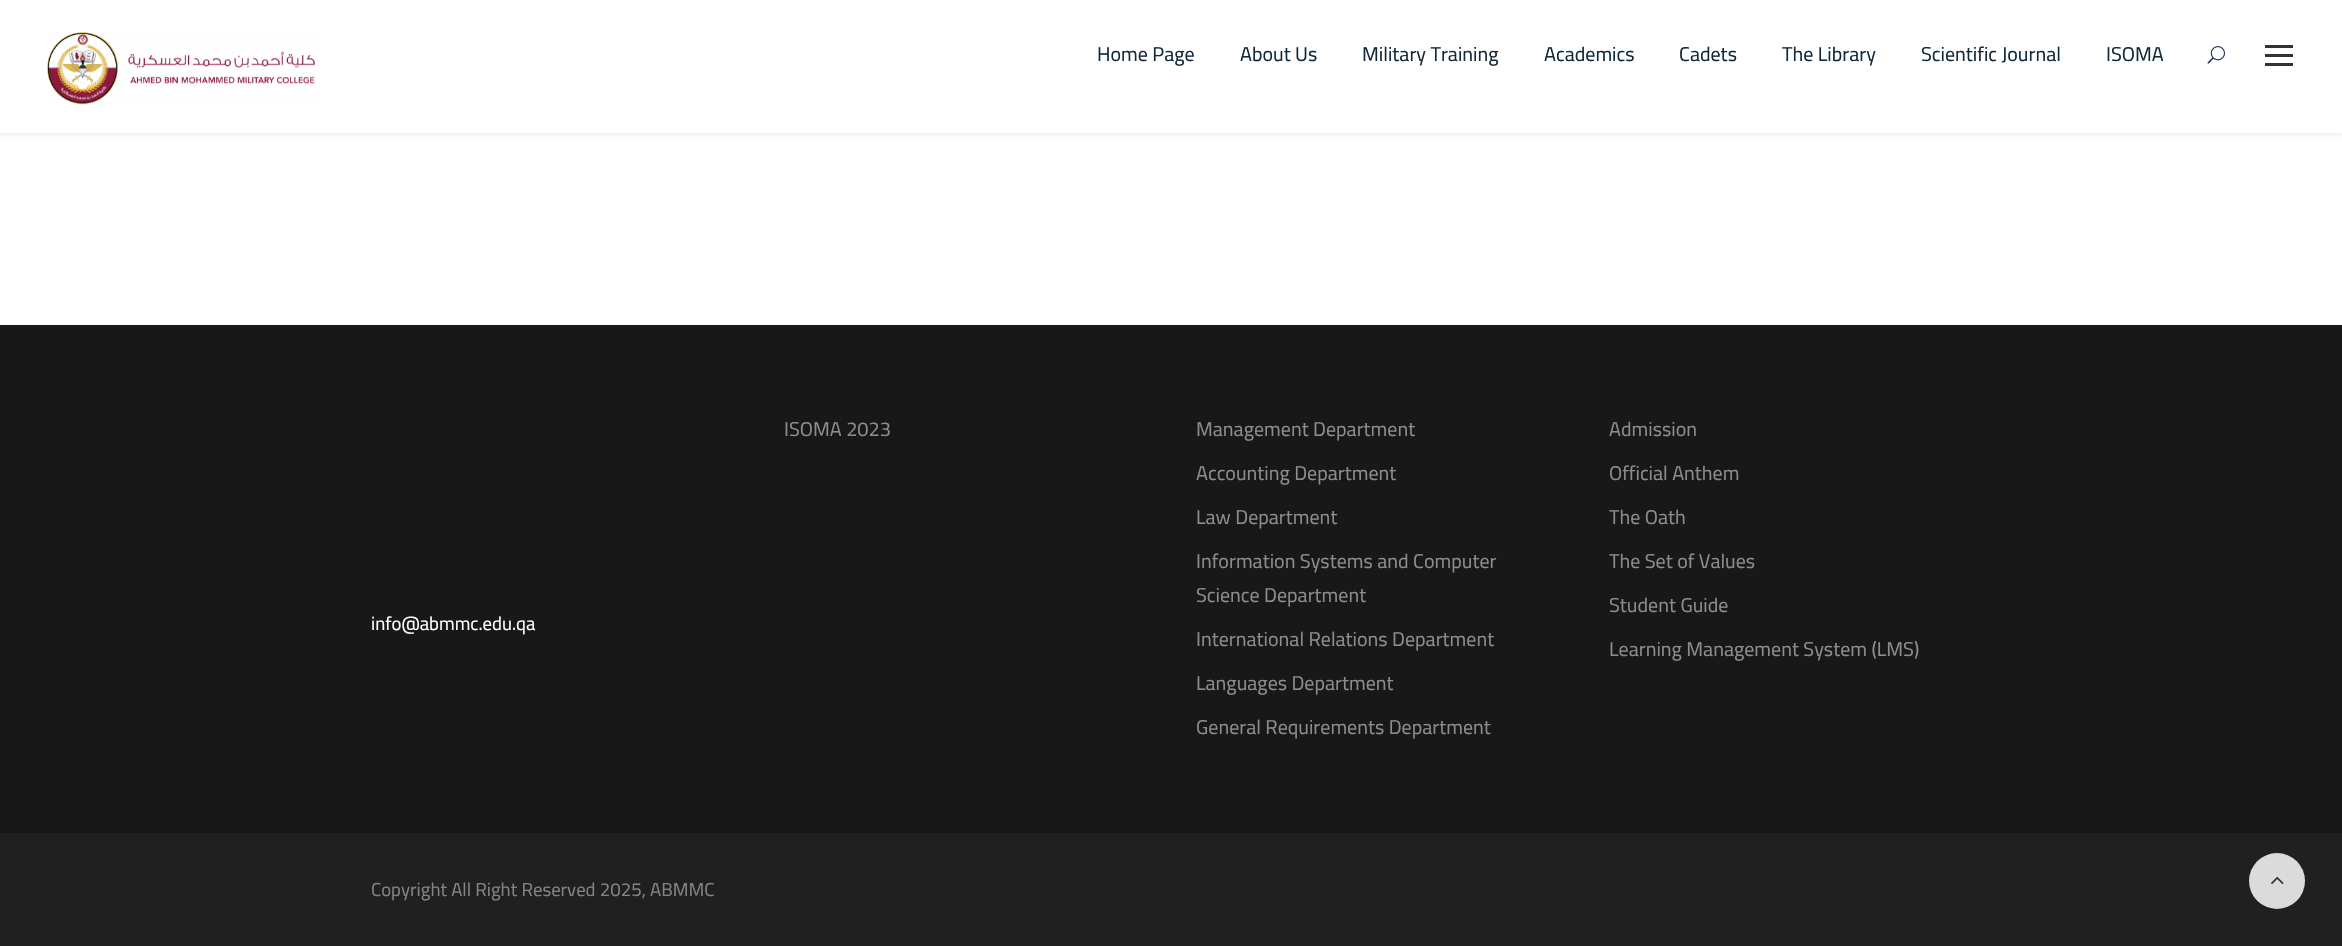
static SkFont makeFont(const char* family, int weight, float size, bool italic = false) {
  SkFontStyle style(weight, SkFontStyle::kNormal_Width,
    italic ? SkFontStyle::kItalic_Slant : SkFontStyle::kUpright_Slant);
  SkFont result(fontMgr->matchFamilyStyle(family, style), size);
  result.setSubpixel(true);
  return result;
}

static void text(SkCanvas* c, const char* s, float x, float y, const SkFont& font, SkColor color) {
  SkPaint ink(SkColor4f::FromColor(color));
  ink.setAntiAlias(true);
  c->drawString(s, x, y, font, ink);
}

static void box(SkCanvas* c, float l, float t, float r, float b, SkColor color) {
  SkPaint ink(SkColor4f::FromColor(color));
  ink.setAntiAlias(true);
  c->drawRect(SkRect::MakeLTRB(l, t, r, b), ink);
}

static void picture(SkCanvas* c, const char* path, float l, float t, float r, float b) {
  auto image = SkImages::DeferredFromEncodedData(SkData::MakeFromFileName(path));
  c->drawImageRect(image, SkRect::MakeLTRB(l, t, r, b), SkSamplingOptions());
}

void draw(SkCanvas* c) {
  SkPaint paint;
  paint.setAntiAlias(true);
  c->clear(0xffffffff);
  paint.setColor(0x1a000000);
  paint.setMaskFilter(SkMaskFilter::MakeBlur(kNormal_SkBlurStyle, 2.5f));
  c->drawRect(SkRect::MakeLTRB(0, 1, 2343, 134), paint);
  paint.setMaskFilter(nullptr);
  box(c, 0, 0, 2342, 133, 0xffffffff);
  picture(c, "img_01.png", 47, 32, 316, 105);
  SkFont face1 = makeFont("Cairo", 400, 20);
  text(c, "Home Page", 1097, 61, face1, 0xff12283b);
  text(c, "About Us", 1240, 61, face1, 0xff12283b);
  text(c, "Military Training", 1362, 61, face1, 0xff12283b);
  text(c, "Academics", 1544, 61, face1, 0xff12283b);
  text(c, "Cadets", 1679, 61, face1, 0xff12283b);
  text(c, "The Library", 1782, 61, face1, 0xff12283b);
  text(c, "Scientific Journal", 1921, 61, face1, 0xff12283b);
  text(c, "ISOMA", 2106, 61, face1, 0xff12283b);
  picture(c, "img_02.png", 2207, 46, 2225, 64);
  box(c, 2265, 45, 2293, 48, 0xff333333);
  box(c, 2265, 54, 2293, 57, 0xff333333);
  box(c, 2265, 63, 2293, 66, 0xff333333);
  box(c, 0, 325, 2342, 833, 0xff181818);
  SkFont face2 = makeFont("Cairo", 400, 18.75f);
  text(c, "info@abmmc.edu.qa", 371, 630, face2, 0xffffffff);
  text(c, "ISOMA 2023", 784, 436, face1, 0xff8d8d8d);
  text(c, "Management Department", 1196, 436, face1, 0xff8d8d8d);
  text(c, "Accounting Department", 1196, 480, face1, 0xff8d8d8d);
  text(c, "Law Department", 1196, 524, face1, 0xff8d8d8d);
  text(c, "Information Systems and Computer", 1196, 568, face1, 0xff8d8d8d);
  text(c, "Science Department", 1196, 602, face1, 0xff8d8d8d);
  text(c, "International Relations Department", 1196, 646, face1, 0xff8d8d8d);
  text(c, "Languages Department", 1196, 690, face1, 0xff8d8d8d);
  text(c, "General Requirements Department", 1196, 734, face1, 0xff8d8d8d);
  text(c, "Admission", 1609, 436, face1, 0xff8d8d8d);
  text(c, "Official Anthem", 1609, 480, face1, 0xff8d8d8d);
  text(c, "The Oath", 1609, 524, face1, 0xff8d8d8d);
  text(c, "The Set of Values", 1609, 568, face1, 0xff8d8d8d);
  text(c, "Student Guide", 1609, 612, face1, 0xff8d8d8d);
  text(c, "Learning Management System (LMS)", 1609, 656, face1, 0xff8d8d8d);
  box(c, 0, 833, 2342, 946, 0xff202020);
  text(c, "Copyright All Right Reserved 2025, ABMMC", 371, 896, face2, 0xff838383);
  paint.setColor(0xffdbdbdb);
  c->drawCircle(2277, 881, 28, paint);
  picture(c, "img_03.png", 2271, 876, 2284, 885);
}
